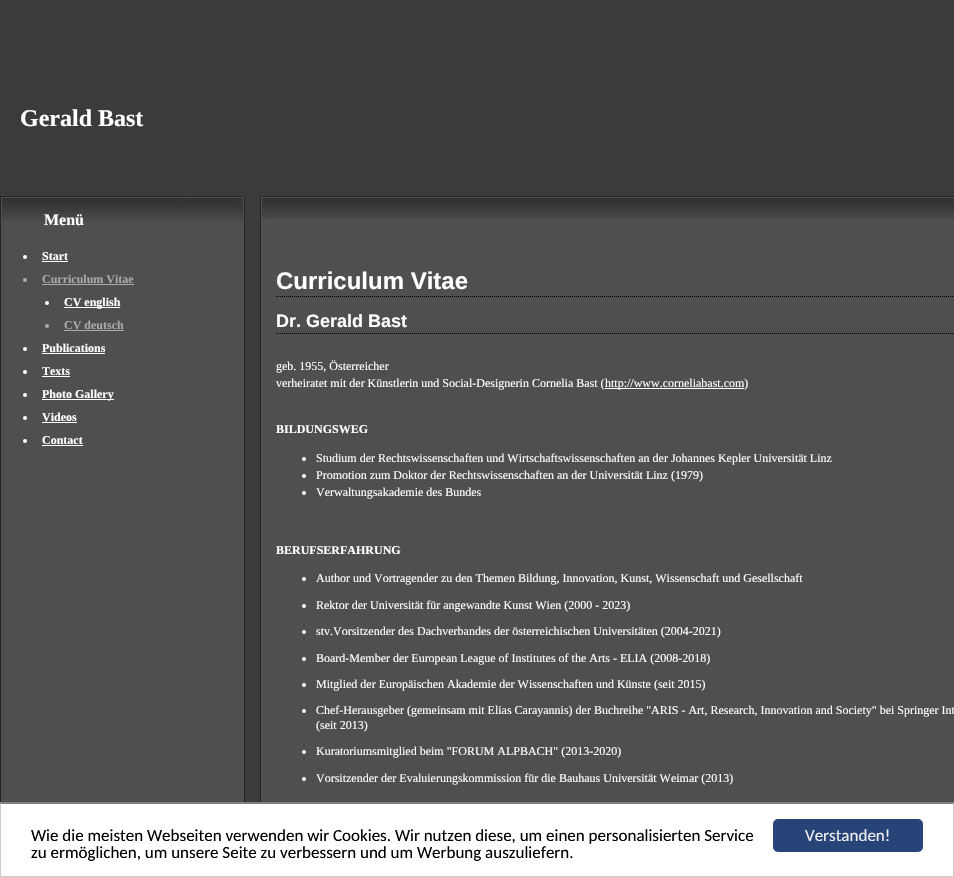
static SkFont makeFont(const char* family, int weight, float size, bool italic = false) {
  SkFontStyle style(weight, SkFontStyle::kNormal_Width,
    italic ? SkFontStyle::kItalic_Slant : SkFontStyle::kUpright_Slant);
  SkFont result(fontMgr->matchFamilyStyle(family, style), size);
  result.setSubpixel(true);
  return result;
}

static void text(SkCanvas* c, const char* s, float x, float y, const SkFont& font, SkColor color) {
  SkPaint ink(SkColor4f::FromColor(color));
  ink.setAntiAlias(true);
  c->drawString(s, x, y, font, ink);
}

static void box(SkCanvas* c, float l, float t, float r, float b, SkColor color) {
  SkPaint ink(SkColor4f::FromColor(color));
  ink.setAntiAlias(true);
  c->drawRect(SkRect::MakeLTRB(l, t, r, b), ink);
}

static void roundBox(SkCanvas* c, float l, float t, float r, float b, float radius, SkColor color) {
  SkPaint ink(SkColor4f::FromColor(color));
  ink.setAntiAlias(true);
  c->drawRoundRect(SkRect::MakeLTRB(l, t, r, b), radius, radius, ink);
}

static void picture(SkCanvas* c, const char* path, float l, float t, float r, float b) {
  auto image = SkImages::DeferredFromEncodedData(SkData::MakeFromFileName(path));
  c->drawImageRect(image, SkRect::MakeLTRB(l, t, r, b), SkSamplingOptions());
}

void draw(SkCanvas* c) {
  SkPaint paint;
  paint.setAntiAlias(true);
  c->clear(0xff3b3b3b);
  SkFont face1 = makeFont("Liberation Serif", 700, 24);
  text(c, "Gerald Bast", 20, 126, face1, 0xffffffff);
  picture(c, "img_01.png", 0, 196, 954, 804);
  picture(c, "img_02.png", 1, 196, 246, 222);
  SkFont face2 = makeFont("Liberation Serif", 700, 16);
  text(c, "Menü", 44, 225, face2, 0xffffffff);
  paint.setColor(0xffffffff);
  c->drawCircle(25, 257, 2, paint);
  SkFont face3 = makeFont("Liberation Serif", 700, 12);
  text(c, "Start", 42, 260, face3, 0xffffffff);
  box(c, 42, 261, 68, 262, 0xffffffff);
  paint.setColor(0xffaaaaaa);
  c->drawCircle(25, 280, 2, paint);
  text(c, "Curriculum Vitae", 42, 283, face3, 0xffaaaaaa);
  box(c, 42, 284, 134, 285, 0xffaaaaaa);
  paint.setColor(0xffffffff);
  c->drawCircle(47, 303, 2, paint);
  box(c, 64, 307, 120, 308, 0xffffffff);
  text(c, "CV english", 64, 306, face3, 0xffffffff);
  paint.setColor(0xffaaaaaa);
  c->drawCircle(47, 326, 2, paint);
  text(c, "CV deutsch", 64, 329, face3, 0xffaaaaaa);
  box(c, 64, 330, 124, 331, 0xffaaaaaa);
  paint.setColor(0xffffffff);
  c->drawCircle(25, 349, 2, paint);
  text(c, "Publications", 42, 352, face3, 0xffffffff);
  box(c, 42, 353, 105, 354, 0xffffffff);
  c->drawCircle(25, 372, 2, paint);
  text(c, "Texts", 42, 375, face3, 0xffffffff);
  box(c, 42, 376, 70, 377, 0xffffffff);
  c->drawCircle(25, 395, 2, paint);
  box(c, 42, 399, 114, 400, 0xffffffff);
  text(c, "Photo Gallery", 42, 398, face3, 0xffffffff);
  c->drawCircle(25, 418, 2, paint);
  text(c, "Videos", 42, 421, face3, 0xffffffff);
  box(c, 42, 422, 77, 423, 0xffffffff);
  c->drawCircle(25, 441, 2, paint);
  text(c, "Contact", 42, 444, face3, 0xffffffff);
  box(c, 42, 445, 83, 446, 0xffffffff);
  picture(c, "img_03.png", 261, 196, 954, 219);
  paint.setStyle(SkPaint::kStroke_Style);
  paint.setStrokeWidth(1);
  paint.setColor(0xff000000);
  paint.setPathEffect(SkDashPathEffect::Make({{1, 1}}, 0));
  c->drawPath(SkPathBuilder().moveTo(276, 296.5f).lineTo(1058, 296.5f).detach(), paint);
  paint.setPathEffect(nullptr);
  SkFont face4 = makeFont("Liberation Sans", 700, 24);
  text(c, "Curriculum Vitae", 276, 289, face4, 0xffffffff);
  paint.setPathEffect(SkDashPathEffect::Make({{1, 1}}, 0));
  c->drawPath(SkPathBuilder().moveTo(276, 333.5f).lineTo(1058, 333.5f).detach(), paint);
  paint.setPathEffect(nullptr);
  SkFont face5 = makeFont("Liberation Sans", 700, 18);
  text(c, "Dr. Gerald Bast", 276, 327, face5, 0xffffffff);
  SkFont face6 = makeFont("Liberation Serif", 400, 12);
  text(c, "geb. 1955, Österreicher", 276, 370, face6, 0xffffffff);
  text(c, "verheiratet mit der Künstlerin und Social-Designerin Cornelia Bast (", 276, 387, face6, 0xffffffff);
  box(c, 605, 388, 744, 389, 0xffffffff);
  text(c, "http://www.corneliabast.com)", 605, 387, face6, 0xffffffff);
  text(c, "BILDUNGSWEG", 276, 433, face3, 0xffffffff);
  paint.setStyle(SkPaint::kFill_Style);
  paint.setColor(0xffffffff);
  c->drawCircle(304, 459, 2, paint);
  text(c, "Studium der Rechtswissenschaften und Wirtschaftswissenschaften an der Johannes Kepler Universität Linz", 316, 462, face6, 0xffffffff);
  c->drawCircle(304, 476, 2, paint);
  text(c, "Promotion zum Doktor der Rechtswissenschaften an der Universität Linz (1979)", 316, 479, face6, 0xffffffff);
  c->drawCircle(304, 493, 2, paint);
  text(c, "Verwaltungsakademie des Bundes", 316, 496, face6, 0xffffffff);
  text(c, "BERUFSERFAHRUNG", 276, 554, face3, 0xffffffff);
  c->drawCircle(304, 579, 2, paint);
  text(c, "Author und Vortragender zu den Themen Bildung, Innovation, Kunst, Wissenschaft und Gesellschaft", 316, 582, face6, 0xffffffff);
  c->drawCircle(304, 606, 2, paint);
  text(c, "Rektor der Universität für angewandte Kunst Wien (2000 - 2023)", 316, 609, face6, 0xffffffff);
  c->drawCircle(304, 632, 2, paint);
  text(c, "stv.Vorsitzender des Dachverbandes der österreichischen Universitäten (2004-2021)", 316, 635, face6, 0xffffffff);
  c->drawCircle(304, 659, 2, paint);
  text(c, "Board-Member der European League of Institutes of the Arts - ELIA (2008-2018)", 316, 662, face6, 0xffffffff);
  c->drawCircle(304, 685, 2, paint);
  text(c, "Mitglied der Europäischen Akademie der Wissenschaften und Künste (seit 2015)", 316, 688, face6, 0xffffffff);
  c->drawCircle(304, 711, 2, paint);
  text(c, "Chef-Herausgeber (gemeinsam mit Elias Carayannis) der Buchreihe \"ARIS - Art, Research, Innovation and Society\" bei Springer Int", 316, 714, face6, 0xffffffff);
  text(c, "(seit 2013)", 316, 729, face6, 0xffffffff);
  c->drawCircle(304, 752, 2, paint);
  text(c, "Kuratoriumsmitglied beim \"FORUM ALPBACH\" (2013-2020)", 316, 755, face6, 0xffffffff);
  c->drawCircle(304, 779, 2, paint);
  text(c, "Vorsitzender der Evaluierungskommission für die Bauhaus Universität Weimar (2013)", 316, 782, face6, 0xffffffff);
  box(c, 1, 804, 953, 876, 0xffffffff);
  paint.setColor(0xff808080);
  c->drawPath(SkPathBuilder().moveTo(0, 802).lineTo(954, 802).lineTo(953, 804).lineTo(1, 804).close().detach(), paint);
  paint.setColor(0xffcccccc);
  c->drawPath(SkPathBuilder().moveTo(954, 802).lineTo(954, 877).lineTo(953, 876).lineTo(953, 804).close().detach(), paint);
  box(c, 0, 876, 954, 877, 0xffcccccc);
  c->drawPath(SkPathBuilder().moveTo(0, 877).lineTo(0, 802).lineTo(1, 804).lineTo(1, 876).close().detach(), paint);
  SkFont face7 = makeFont("Carlito", 400, 17);
  text(c, "Wie die meisten Webseiten verwenden wir Cookies. Wir nutzen diese, um einen personalisierten Service", 31, 841, face7, 0xff000000);
  text(c, "zu ermöglichen, um unsere Seite zu verbessern und um Werbung auszuliefern.", 31, 858, face7, 0xff000000);
  roundBox(c, 773, 819, 923, 852, 5, 0xff274479);
  text(c, "Verstanden!", 805, 841, face7, 0xffeeeeee);
}
